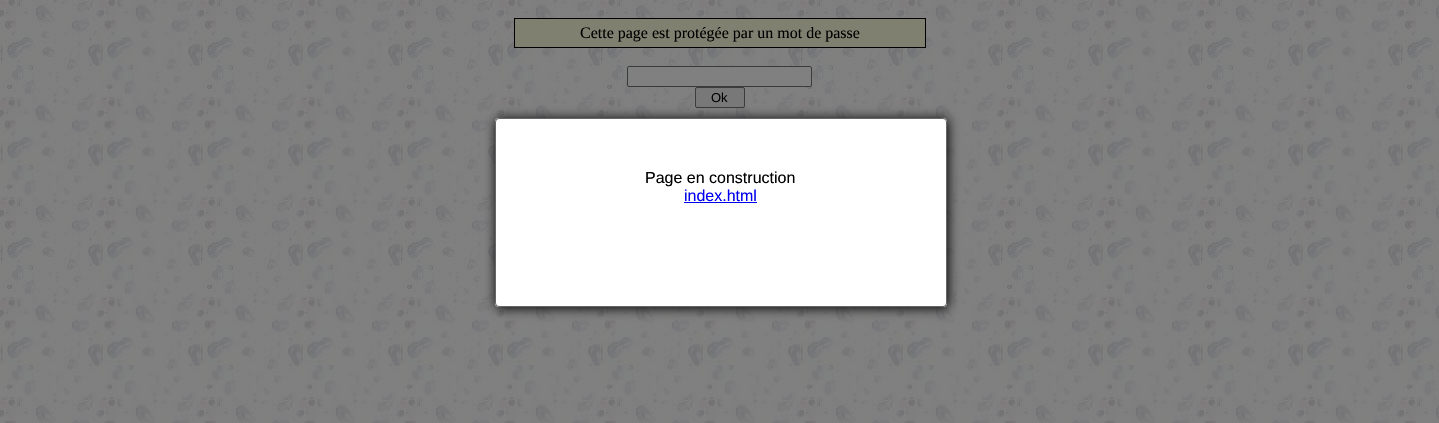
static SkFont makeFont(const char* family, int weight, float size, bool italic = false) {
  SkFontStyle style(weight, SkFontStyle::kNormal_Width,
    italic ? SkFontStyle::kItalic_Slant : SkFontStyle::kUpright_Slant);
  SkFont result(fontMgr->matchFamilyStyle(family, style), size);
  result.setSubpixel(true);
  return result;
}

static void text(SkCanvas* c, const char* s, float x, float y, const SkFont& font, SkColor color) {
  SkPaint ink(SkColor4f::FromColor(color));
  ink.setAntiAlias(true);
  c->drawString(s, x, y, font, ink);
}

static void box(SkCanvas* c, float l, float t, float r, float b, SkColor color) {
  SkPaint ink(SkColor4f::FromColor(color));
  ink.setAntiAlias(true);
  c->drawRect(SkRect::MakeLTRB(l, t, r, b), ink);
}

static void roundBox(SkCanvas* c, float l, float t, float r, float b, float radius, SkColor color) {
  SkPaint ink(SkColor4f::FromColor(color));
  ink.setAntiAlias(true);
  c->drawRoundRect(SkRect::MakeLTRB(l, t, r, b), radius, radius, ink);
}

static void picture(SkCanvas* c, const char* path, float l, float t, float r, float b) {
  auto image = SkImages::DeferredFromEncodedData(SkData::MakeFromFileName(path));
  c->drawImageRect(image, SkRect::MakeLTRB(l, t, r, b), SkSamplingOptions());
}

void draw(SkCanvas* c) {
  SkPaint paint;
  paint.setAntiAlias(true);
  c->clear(0xffffffff);
  picture(c, "img_01.png", 0, 0, 1439, 423);
  paint.setColor(0xff808070);
  c->drawRect(SkRect::MakeLTRB(514.5f, 18.5f, 925.5f, 47.5f), paint);
  paint.setStyle(SkPaint::kStroke_Style);
  paint.setStrokeWidth(1);
  paint.setColor(0xff000000);
  c->drawRect(SkRect::MakeLTRB(514.5f, 18.5f, 925.5f, 47.5f), paint);
  SkFont face1 = makeFont("Liberation Serif", 400, 16);
  text(c, "Cette page est protégée par un mot de passe", 580, 38, face1, 0xff000000);
  paint.setStyle(SkPaint::kFill_Style);
  paint.setColor(0xff808080);
  c->drawRoundRect(SkRect::MakeLTRB(627.5f, 66.5f, 811.5f, 86.5f), 1.5f, 1.5f, paint);
  paint.setStyle(SkPaint::kStroke_Style);
  paint.setColor(0xff3b3b3b);
  c->drawRoundRect(SkRect::MakeLTRB(627.5f, 66.5f, 811.5f, 86.5f), 1.5f, 1.5f, paint);
  paint.setStyle(SkPaint::kFill_Style);
  paint.setColor(0xff787878);
  c->drawRoundRect(SkRect::MakeLTRB(695.5f, 87.5f, 744.5f, 107.5f), 1.5f, 1.5f, paint);
  paint.setStyle(SkPaint::kStroke_Style);
  paint.setColor(0xff3b3b3b);
  c->drawRoundRect(SkRect::MakeLTRB(695.5f, 87.5f, 744.5f, 107.5f), 1.5f, 1.5f, paint);
  SkFont face2 = makeFont("Liberation Sans", 400, 13);
  text(c, "Ok", 711, 102, face2, 0xff000000);
  paint.setStyle(SkPaint::kFill_Style);
  paint.setColor(0xff000000);
  paint.setMaskFilter(SkMaskFilter::MakeBlur(kNormal_SkBlurStyle, 6));
  c->drawRoundRect(SkRect::MakeLTRB(496, 119, 948, 308), 4, 4, paint);
  paint.setMaskFilter(nullptr);
  roundBox(c, 495, 118, 947, 307, 4, 0xffffffff);
  paint.setStyle(SkPaint::kStroke_Style);
  paint.setColor(0x99000000);
  c->drawRoundRect(SkRect::MakeLTRB(495.5f, 118.5f, 946.5f, 306.5f), 3.5f, 3.5f, paint);
  SkFont face3 = makeFont("Liberation Sans", 400, 16);
  text(c, "Page en construction", 645, 183, face3, 0xff000000);
  text(c, "index.html", 684, 201, face3, 0xff0000ee);
  box(c, 684, 202, 757, 203, 0xff0000ee);
}
